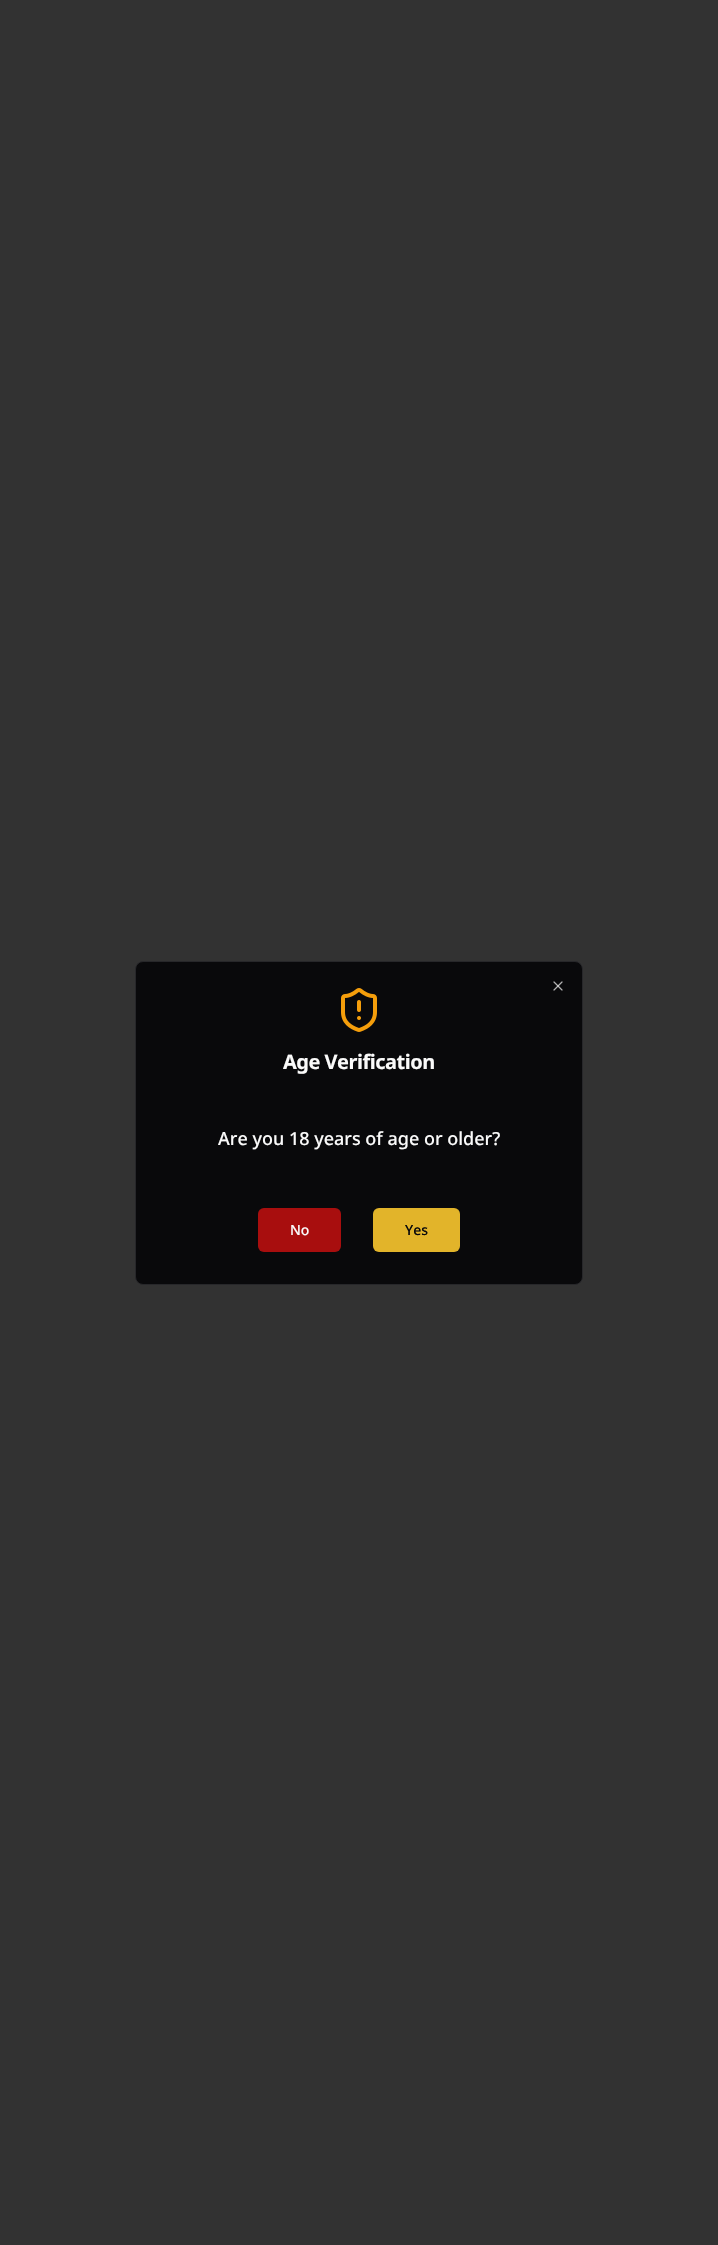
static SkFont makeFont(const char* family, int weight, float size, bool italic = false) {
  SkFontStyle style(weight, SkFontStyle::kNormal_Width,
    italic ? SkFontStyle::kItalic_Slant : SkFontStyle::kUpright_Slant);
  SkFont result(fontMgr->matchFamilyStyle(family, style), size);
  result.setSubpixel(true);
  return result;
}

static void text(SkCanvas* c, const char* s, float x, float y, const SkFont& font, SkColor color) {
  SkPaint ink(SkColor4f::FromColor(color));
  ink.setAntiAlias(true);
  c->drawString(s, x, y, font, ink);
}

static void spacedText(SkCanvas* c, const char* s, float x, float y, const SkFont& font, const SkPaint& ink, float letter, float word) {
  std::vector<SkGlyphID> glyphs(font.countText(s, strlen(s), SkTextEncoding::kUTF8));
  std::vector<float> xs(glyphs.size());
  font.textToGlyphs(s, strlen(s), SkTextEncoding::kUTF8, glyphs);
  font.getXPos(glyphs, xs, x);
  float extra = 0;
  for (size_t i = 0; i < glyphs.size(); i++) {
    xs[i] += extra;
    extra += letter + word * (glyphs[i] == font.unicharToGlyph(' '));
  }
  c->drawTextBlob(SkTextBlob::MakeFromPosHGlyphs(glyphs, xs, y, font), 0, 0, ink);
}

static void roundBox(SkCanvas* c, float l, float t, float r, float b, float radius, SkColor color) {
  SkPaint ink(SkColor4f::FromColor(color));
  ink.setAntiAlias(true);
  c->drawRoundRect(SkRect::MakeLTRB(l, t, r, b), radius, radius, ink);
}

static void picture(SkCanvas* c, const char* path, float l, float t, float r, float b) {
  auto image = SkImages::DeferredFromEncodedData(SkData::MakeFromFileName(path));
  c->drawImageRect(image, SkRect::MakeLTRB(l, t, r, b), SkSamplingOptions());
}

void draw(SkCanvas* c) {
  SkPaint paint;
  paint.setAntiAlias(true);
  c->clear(0xff323232);
  paint.setColor(0xff09090b);
  c->drawRoundRect(SkRect::MakeLTRB(135.5f, 961.5f, 582.5f, 1284.5f), 7.5f, 7.5f, paint);
  paint.setStyle(SkPaint::kStroke_Style);
  paint.setStrokeWidth(1);
  paint.setColor(0xff27272a);
  c->drawRoundRect(SkRect::MakeLTRB(135.5f, 961.5f, 582.5f, 1284.5f), 7.5f, 7.5f, paint);
  picture(c, "img_01.png", 553, 981, 563, 991);
  picture(c, "img_02.png", 341, 988, 377, 1032);
  SkFont face1 = makeFont("Noto Sans", 700, 20);
  paint.setStyle(SkPaint::kFill_Style);
  paint.setColor(0xfffafafa);
  spacedText(c, "Age Verification", 283, 1069, face1, paint, -0.5f, 0);
  SkFont face2 = makeFont("Noto Sans", 500, 18);
  text(c, "Are you 18 years of age or older?", 218, 1145, face2, 0xfffafafa);
  roundBox(c, 258, 1208, 341, 1252, 6, 0xffa80e0e);
  SkFont face3 = makeFont("Noto Sans", 500, 14);
  text(c, "No", 290, 1235, face3, 0xfffafafa);
  roundBox(c, 373, 1208, 460, 1252, 6, 0xffe2b42a);
  text(c, "Yes", 405, 1235, face3, 0xff09090b);
}
